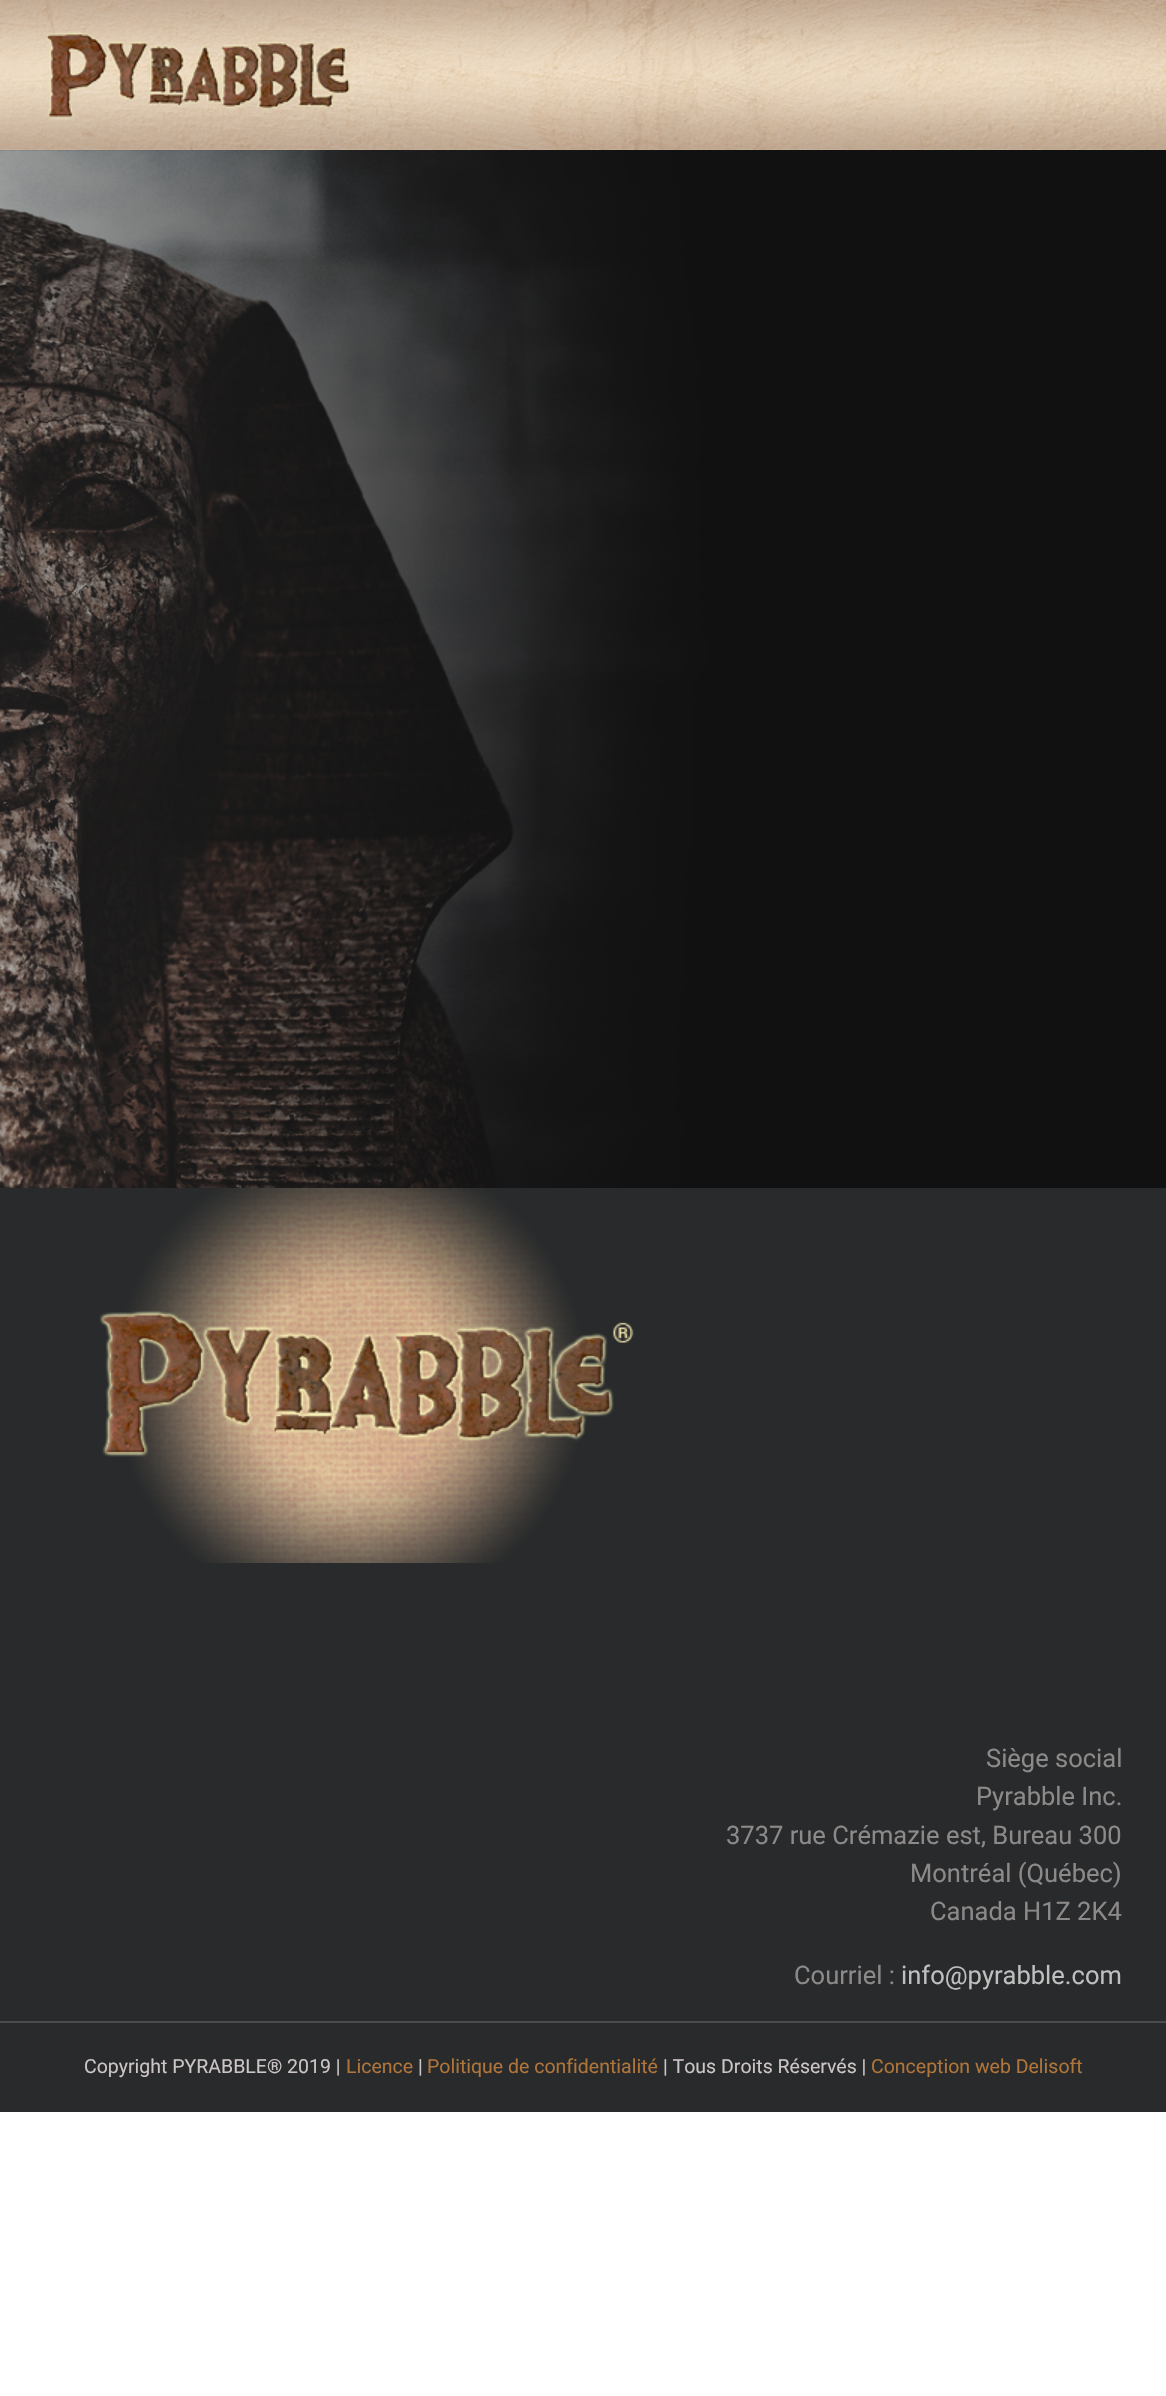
static SkFont makeFont(const char* family, int weight, float size, bool italic = false) {
  SkFontStyle style(weight, SkFontStyle::kNormal_Width,
    italic ? SkFontStyle::kItalic_Slant : SkFontStyle::kUpright_Slant);
  SkFont result(fontMgr->matchFamilyStyle(family, style), size);
  result.setSubpixel(true);
  return result;
}

static void text(SkCanvas* c, const char* s, float x, float y, const SkFont& font, SkColor color) {
  SkPaint ink(SkColor4f::FromColor(color));
  ink.setAntiAlias(true);
  c->drawString(s, x, y, font, ink);
}

static void box(SkCanvas* c, float l, float t, float r, float b, SkColor color) {
  SkPaint ink(SkColor4f::FromColor(color));
  ink.setAntiAlias(true);
  c->drawRect(SkRect::MakeLTRB(l, t, r, b), ink);
}

static void picture(SkCanvas* c, const char* path, float l, float t, float r, float b) {
  auto image = SkImages::DeferredFromEncodedData(SkData::MakeFromFileName(path));
  c->drawImageRect(image, SkRect::MakeLTRB(l, t, r, b), SkSamplingOptions());
}

void draw(SkCanvas* c) {
  SkPaint paint;
  paint.setAntiAlias(true);
  c->clear(0xffffffff);
  picture(c, "img_01.png", 0, 0, 1166, 150);
  picture(c, "img_02.png", 45, 31, 351, 120);
  picture(c, "img_03.png", 0, 150, 1166, 1188);
  box(c, 0, 1188, 1166, 2021, 0xff282a2b);
  picture(c, "img_04.png", 99, 1188, 634, 1563);
  SkFont face1 = makeFont("Roboto", 400, 25.5f);
  text(c, "Siège social", 986, 1767, face1, 0xff8c8989);
  text(c, "Pyrabble Inc.", 976, 1805, face1, 0xff8c8989);
  text(c, "3737 rue Crémazie est, Bureau 300", 726, 1844, face1, 0xff8c8989);
  text(c, "Montréal (Québec)", 910, 1882, face1, 0xff8c8989);
  text(c, "Canada H1Z 2K4", 930, 1920, face1, 0xff8c8989);
  text(c, "Courriel :", 794, 1984, face1, 0xff8c8989);
  text(c, "info@pyrabble.com", 901, 1984, face1, 0xffbfbfbf);
  box(c, 0, 2023, 1166, 2112, 0xff282a2b);
  box(c, 0, 2021, 1166, 2023, 0xff4b4c4d);
  SkFont face2 = makeFont("Roboto", 400, 19.5f);
  text(c, "Copyright PYRABBLE® 2019 |", 84, 2073, face2, 0xffccc5c5);
  text(c, "Licence", 346, 2073, face2, 0xffaf753a);
  text(c, "|", 418, 2073, face2, 0xffccc5c5);
  text(c, "Politique de confidentialité", 427, 2073, face2, 0xffaf753a);
  text(c, "| Tous Droits Réservés |", 663, 2073, face2, 0xffccc5c5);
  text(c, "Conception web Delisoft", 871, 2073, face2, 0xffaf753a);
}
